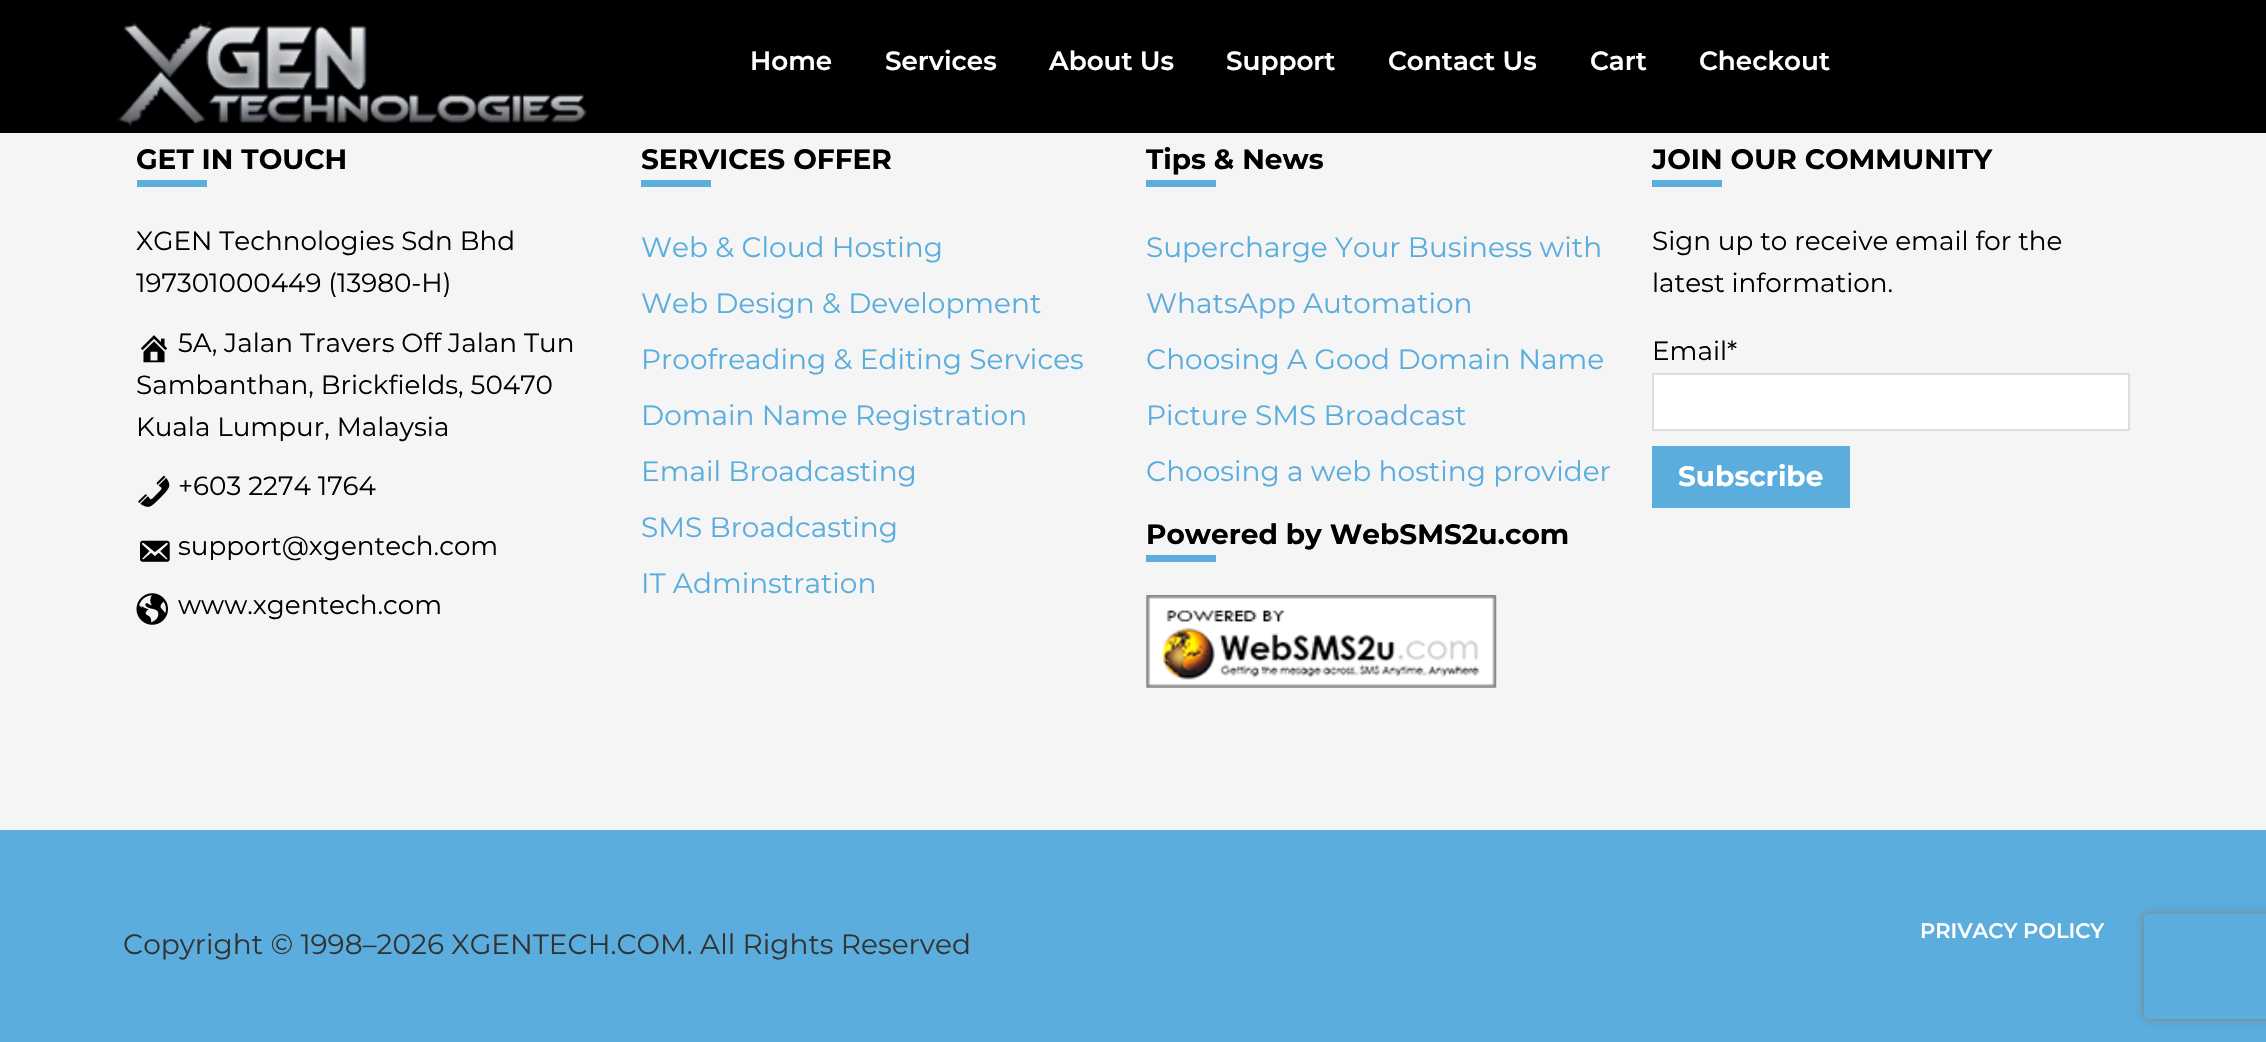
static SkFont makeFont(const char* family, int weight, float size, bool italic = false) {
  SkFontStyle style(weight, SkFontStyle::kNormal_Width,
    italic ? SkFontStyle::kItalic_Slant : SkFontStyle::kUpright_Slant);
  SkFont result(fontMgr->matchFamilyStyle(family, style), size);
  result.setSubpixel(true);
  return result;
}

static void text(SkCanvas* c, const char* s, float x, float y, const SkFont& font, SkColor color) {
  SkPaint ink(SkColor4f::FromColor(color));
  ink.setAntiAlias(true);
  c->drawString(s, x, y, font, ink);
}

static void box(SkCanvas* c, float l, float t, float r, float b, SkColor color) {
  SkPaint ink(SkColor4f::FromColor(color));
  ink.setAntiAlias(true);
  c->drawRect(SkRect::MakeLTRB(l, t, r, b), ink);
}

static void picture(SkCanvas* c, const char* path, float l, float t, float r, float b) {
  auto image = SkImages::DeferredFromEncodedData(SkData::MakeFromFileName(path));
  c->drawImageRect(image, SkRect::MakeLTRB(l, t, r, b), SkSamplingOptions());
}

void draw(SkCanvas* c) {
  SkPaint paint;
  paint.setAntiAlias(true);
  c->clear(0xff5aaddd);
  box(c, 0, 0, 2266, 133, 0xff000000);
  picture(c, "img_01.png", 117, 21, 587, 127);
  SkFont face1 = makeFont("Montserrat", 600, 26.25f);
  text(c, "Home", 750, 70, face1, 0xffffffff);
  text(c, "Services", 885, 70, face1, 0xffffffff);
  text(c, "About Us", 1049, 70, face1, 0xffffffff);
  text(c, "Support", 1226, 70, face1, 0xffffffff);
  text(c, "Contact Us", 1388, 70, face1, 0xffffffff);
  text(c, "Cart", 1590, 70, face1, 0xffffffff);
  text(c, "Checkout", 1699, 70, face1, 0xffffffff);
  box(c, 0, 133, 2266, 830, 0xfff5f5f5);
  SkFont face2 = makeFont("Montserrat", 700, 28);
  text(c, "GET IN TOUCH", 136, 169, face2, 0xff000000);
  box(c, 137, 180, 207, 187, 0xff5aaddd);
  SkFont face3 = makeFont("Montserrat", 400, 26.25f);
  text(c, "XGEN Technologies Sdn Bhd", 136, 250, face3, 0xff000000);
  text(c, "197301000449 (13980-H)", 136, 292, face3, 0xff000000);
  picture(c, "img_02.png", 140, 335, 168, 363);
  text(c, "5A, Jalan Travers Off Jalan Tun", 178, 352, face3, 0xff000000);
  text(c, "Sambanthan, Brickfields, 50470", 136, 394, face3, 0xff000000);
  text(c, "Kuala Lumpur, Malaysia", 136, 436, face3, 0xff000000);
  picture(c, "img_03.png", 138, 475, 170, 507);
  text(c, "+603 2274 1764", 178, 495, face3, 0xff000000);
  picture(c, "img_04.png", 140, 540, 170, 562);
  text(c, "support@xgentech.com", 178, 555, face3, 0xff000000);
  picture(c, "img_05.png", 136, 593, 168, 625);
  text(c, "www.xgentech.com", 178, 614, face3, 0xff000000);
  text(c, "SERVICES OFFER", 641, 169, face2, 0xff000000);
  box(c, 641, 180, 711, 187, 0xff5aaddd);
  SkFont face4 = makeFont("Montserrat", 400, 28);
  text(c, "Web & Cloud Hosting", 641, 257, face4, 0xff5aaddd);
  text(c, "Web Design & Development", 641, 313, face4, 0xff5aaddd);
  text(c, "Proofreading & Editing Services", 641, 369, face4, 0xff5aaddd);
  text(c, "Domain Name Registration", 641, 425, face4, 0xff5aaddd);
  text(c, "Email Broadcasting", 641, 481, face4, 0xff5aaddd);
  text(c, "SMS Broadcasting", 641, 537, face4, 0xff5aaddd);
  text(c, "IT Adminstration", 641, 593, face4, 0xff5aaddd);
  text(c, "Tips & News", 1146, 169, face2, 0xff000000);
  box(c, 1146, 180, 1216, 187, 0xff5aaddd);
  text(c, "Supercharge Your Business with", 1146, 257, face4, 0xff5aaddd);
  text(c, "WhatsApp Automation", 1146, 313, face4, 0xff5aaddd);
  text(c, "Choosing A Good Domain Name", 1146, 369, face4, 0xff5aaddd);
  text(c, "Picture SMS Broadcast", 1146, 425, face4, 0xff5aaddd);
  text(c, "Choosing a web hosting provider", 1146, 481, face4, 0xff5aaddd);
  text(c, "Powered by WebSMS2u.com", 1146, 544, face2, 0xff000000);
  box(c, 1146, 555, 1216, 562, 0xff5aaddd);
  picture(c, "img_06.png", 1146, 595, 1497, 688);
  text(c, "JOIN OUR COMMUNITY", 1652, 169, face2, 0xff000000);
  box(c, 1652, 180, 1722, 187, 0xff5aaddd);
  text(c, "Sign up to receive email for the", 1652, 250, face3, 0xff000000);
  text(c, "latest information.", 1652, 292, face3, 0xff000000);
  text(c, "Email*", 1652, 360, face3, 0xff000000);
  paint.setColor(0xffffffff);
  c->drawRect(SkRect::MakeLTRB(1653, 374, 2129, 430), paint);
  paint.setStyle(SkPaint::kStroke_Style);
  paint.setStrokeWidth(2);
  paint.setColor(0xffdddddd);
  c->drawRect(SkRect::MakeLTRB(1653, 374, 2129, 430), paint);
  box(c, 1652, 446, 1850, 508, 0xff5aaddd);
  text(c, "Subscribe", 1678, 486, face2, 0xffffffff);
  SkFont face5 = makeFont("Montserrat", 600, 21);
  text(c, "PRIVACY POLICY", 1920, 938, face5, 0xffffffff);
  text(c, "Copyright © 1998–2026 XGENTECH.COM. All Rights Reserved", 123, 954, face4, 0xff333333);
  c->save();
  c->clipPath(SkPathBuilder(SkPathFillType::kEvenOdd).moveTo(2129, 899).lineTo(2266, 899).lineTo(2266, 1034).lineTo(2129, 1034).close().moveTo(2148, 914).lineTo(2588, 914).cubicTo(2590, 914, 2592, 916, 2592, 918).lineTo(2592, 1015).cubicTo(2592, 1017, 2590, 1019, 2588, 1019).lineTo(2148, 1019).cubicTo(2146, 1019, 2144, 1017, 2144, 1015).lineTo(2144, 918).cubicTo(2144, 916, 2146, 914, 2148, 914).close().detach(), true);
  paint.setStyle(SkPaint::kFill_Style);
  paint.setColor(0xff808080);
  paint.setMaskFilter(SkMaskFilter::MakeBlur(kNormal_SkBlurStyle, 4.5f));
  c->drawRoundRect(SkRect::MakeLTRB(2144, 914, 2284, 1019), 4, 4, paint);
  paint.setMaskFilter(nullptr);
  c->restore();
}
